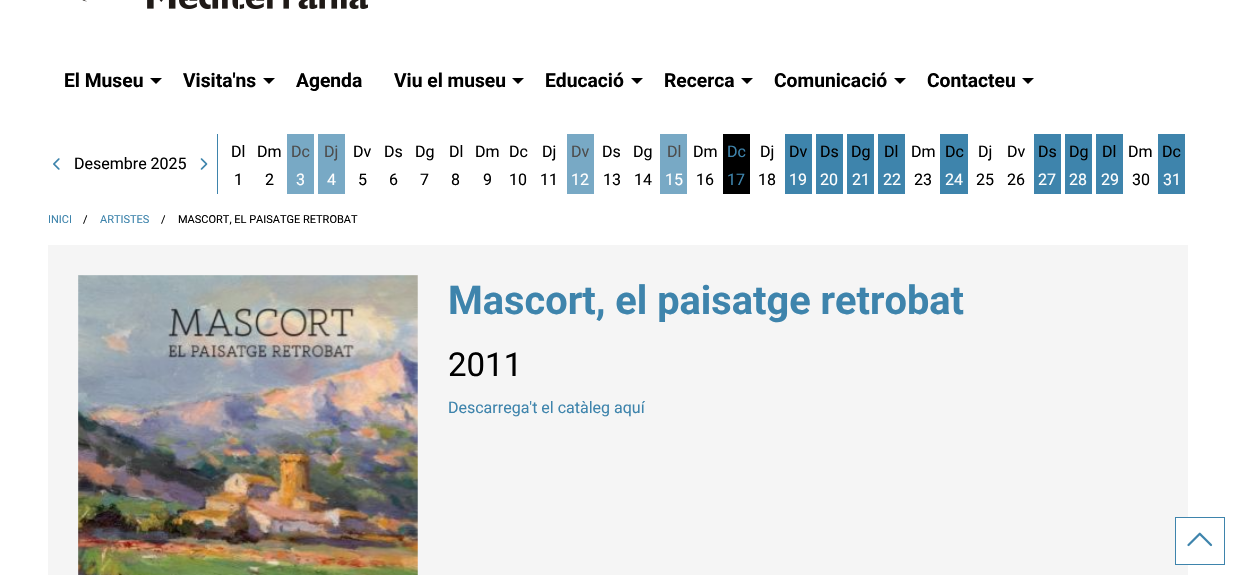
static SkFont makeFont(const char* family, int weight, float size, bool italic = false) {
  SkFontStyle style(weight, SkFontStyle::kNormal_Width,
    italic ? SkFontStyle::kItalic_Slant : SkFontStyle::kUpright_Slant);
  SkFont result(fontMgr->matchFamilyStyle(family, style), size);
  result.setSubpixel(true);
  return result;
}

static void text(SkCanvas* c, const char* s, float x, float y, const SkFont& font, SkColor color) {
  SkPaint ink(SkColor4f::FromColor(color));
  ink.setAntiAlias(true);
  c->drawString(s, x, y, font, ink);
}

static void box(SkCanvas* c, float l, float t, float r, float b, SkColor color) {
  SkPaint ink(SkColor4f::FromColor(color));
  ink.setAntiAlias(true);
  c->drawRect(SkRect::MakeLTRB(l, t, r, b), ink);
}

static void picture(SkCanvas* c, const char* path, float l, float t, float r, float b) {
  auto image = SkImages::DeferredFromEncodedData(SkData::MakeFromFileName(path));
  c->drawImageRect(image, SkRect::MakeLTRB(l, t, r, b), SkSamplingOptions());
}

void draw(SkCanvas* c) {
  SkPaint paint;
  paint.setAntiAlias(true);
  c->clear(0xffffffff);
  picture(c, "img_01.png", 82, 0, 368, 9);
  SkFont face1 = makeFont("Roboto", 700, 19.25f);
  text(c, "El Museu", 64, 87, face1, 0xff000000);
  paint.setColor(0xff000000);
  c->drawPath(SkPathBuilder().moveTo(150, 78).lineTo(162, 78).lineTo(156, 84).close().detach(), paint);
  text(c, "Visita'ns", 183, 87, face1, 0xff000000);
  c->drawPath(SkPathBuilder().moveTo(263, 78).lineTo(275, 78).lineTo(269, 84).close().detach(), paint);
  text(c, "Agenda", 296, 87, face1, 0xff000000);
  text(c, "Viu el museu", 394, 87, face1, 0xff000000);
  c->drawPath(SkPathBuilder().moveTo(512, 78).lineTo(524, 78).lineTo(518, 84).close().detach(), paint);
  text(c, "Educació", 545, 87, face1, 0xff000000);
  c->drawPath(SkPathBuilder().moveTo(631, 78).lineTo(643, 78).lineTo(637, 84).close().detach(), paint);
  text(c, "Recerca", 664, 87, face1, 0xff000000);
  c->drawPath(SkPathBuilder().moveTo(741, 78).lineTo(753, 78).lineTo(747, 84).close().detach(), paint);
  text(c, "Comunicació", 774, 87, face1, 0xff000000);
  c->drawPath(SkPathBuilder().moveTo(894, 78).lineTo(906, 78).lineTo(900, 84).close().detach(), paint);
  text(c, "Contacteu", 927, 87, face1, 0xff000000);
  c->drawPath(SkPathBuilder().moveTo(1022, 78).lineTo(1034, 78).lineTo(1028, 84).close().detach(), paint);
  box(c, 217, 134, 218, 194, 0xff3e84ac);
  picture(c, "img_02.png", 53, 158, 60, 170);
  SkFont face2 = makeFont("Roboto", 400, 16);
  text(c, "Desembre 2025", 74, 169, face2, 0xff000000);
  picture(c, "img_03.png", 200, 158, 208, 170);
  text(c, "Dl", 231, 157, face2, 0xff000000);
  text(c, "1", 234, 185, face2, 0xff000000);
  text(c, "Dm", 257, 157, face2, 0xff000000);
  text(c, "2", 265, 185, face2, 0xff000000);
  box(c, 287, 134, 314, 194, 0xff78a9c5);
  text(c, "Dc", 291, 157, face2, 0xff4d4d4d);
  text(c, "3", 296, 185, face2, 0xffffffff);
  box(c, 318, 134, 345, 194, 0xff78a9c5);
  text(c, "Dj", 324, 157, face2, 0xff4d4d4d);
  text(c, "4", 327, 185, face2, 0xffffffff);
  text(c, "Dv", 353, 157, face2, 0xff000000);
  text(c, "5", 358, 185, face2, 0xff000000);
  text(c, "Ds", 384, 157, face2, 0xff000000);
  text(c, "6", 389, 185, face2, 0xff000000);
  text(c, "Dg", 415, 157, face2, 0xff000000);
  text(c, "7", 420, 185, face2, 0xff000000);
  text(c, "Dl", 449, 157, face2, 0xff000000);
  text(c, "8", 451, 185, face2, 0xff000000);
  text(c, "Dm", 475, 157, face2, 0xff000000);
  text(c, "9", 483, 185, face2, 0xff000000);
  text(c, "Dc", 509, 157, face2, 0xff000000);
  text(c, "10", 509, 185, face2, 0xff000000);
  text(c, "Dj", 542, 157, face2, 0xff000000);
  text(c, "11", 540, 185, face2, 0xff000000);
  box(c, 567, 134, 594, 194, 0xff78a9c5);
  text(c, "Dv", 571, 157, face2, 0xff4d4d4d);
  text(c, "12", 571, 185, face2, 0xffffffff);
  text(c, "Ds", 602, 157, face2, 0xff000000);
  text(c, "13", 603, 185, face2, 0xff000000);
  text(c, "Dg", 633, 157, face2, 0xff000000);
  text(c, "14", 634, 185, face2, 0xff000000);
  box(c, 660, 134, 687, 194, 0xff78a9c5);
  text(c, "Dl", 667, 157, face2, 0xff4d4d4d);
  text(c, "15", 665, 185, face2, 0xffffffff);
  text(c, "Dm", 693, 157, face2, 0xff000000);
  text(c, "16", 696, 185, face2, 0xff000000);
  box(c, 723, 134, 750, 194, 0xff000000);
  text(c, "Dc", 727, 157, face2, 0xff3e84ac);
  text(c, "17", 727, 185, face2, 0xff3e84ac);
  text(c, "Dj", 760, 157, face2, 0xff000000);
  text(c, "18", 758, 185, face2, 0xff000000);
  box(c, 785, 134, 812, 194, 0xff3e84ac);
  text(c, "Dv", 789, 157, face2, 0xff000000);
  text(c, "19", 789, 185, face2, 0xffffffff);
  box(c, 816, 134, 843, 194, 0xff3e84ac);
  text(c, "Ds", 820, 157, face2, 0xff000000);
  text(c, "20", 820, 185, face2, 0xffffffff);
  box(c, 847, 134, 874, 194, 0xff3e84ac);
  text(c, "Dg", 851, 157, face2, 0xff000000);
  text(c, "21", 852, 185, face2, 0xffffffff);
  box(c, 878, 134, 905, 194, 0xff3e84ac);
  text(c, "Dl", 884, 157, face2, 0xff000000);
  text(c, "22", 883, 185, face2, 0xffffffff);
  text(c, "Dm", 911, 157, face2, 0xff000000);
  text(c, "23", 914, 185, face2, 0xff000000);
  box(c, 940, 134, 968, 194, 0xff3e84ac);
  text(c, "Dc", 945, 157, face2, 0xff000000);
  text(c, "24", 945, 185, face2, 0xffffffff);
  text(c, "Dj", 978, 157, face2, 0xff000000);
  text(c, "25", 976, 185, face2, 0xff000000);
  text(c, "Dv", 1007, 157, face2, 0xff000000);
  text(c, "26", 1007, 185, face2, 0xff000000);
  box(c, 1034, 134, 1061, 194, 0xff3e84ac);
  text(c, "Ds", 1038, 157, face2, 0xff000000);
  text(c, "27", 1038, 185, face2, 0xffffffff);
  box(c, 1065, 134, 1092, 194, 0xff3e84ac);
  text(c, "Dg", 1069, 157, face2, 0xff000000);
  text(c, "28", 1069, 185, face2, 0xffffffff);
  box(c, 1096, 134, 1123, 194, 0xff3e84ac);
  text(c, "Dl", 1102, 157, face2, 0xff000000);
  text(c, "29", 1101, 185, face2, 0xffffffff);
  text(c, "Dm", 1128, 157, face2, 0xff000000);
  text(c, "30", 1132, 185, face2, 0xff000000);
  box(c, 1158, 134, 1185, 194, 0xff3e84ac);
  text(c, "Dc", 1162, 157, face2, 0xff000000);
  text(c, "31", 1163, 185, face2, 0xffffffff);
  SkFont face3 = makeFont("Roboto", 400, 11);
  text(c, "INICI", 48, 223, face3, 0xff3e84ac);
  text(c, "/", 83, 223, face3, 0xff000000);
  text(c, "ARTISTES", 100, 223, face3, 0xff3e84ac);
  text(c, "/", 161, 223, face3, 0xff000000);
  text(c, "MASCORT, EL PAISATGE RETROBAT", 178, 223, face3, 0xff000000);
  box(c, 48, 245, 1188, 575, 0xfff5f5f5);
  picture(c, "img_04.png", 78, 275, 418, 575);
  SkFont face4 = makeFont("Roboto", 700, 39.75f);
  text(c, "Mascort, el paisatge retrobat", 448, 314, face4, 0xff3e84ac);
  SkFont face5 = makeFont("Roboto", 400, 33);
  text(c, "2011", 448, 376, face5, 0xff000000);
  text(c, "Descarrega't el catàleg aquí", 448, 413, face2, 0xff3e84ac);
  box(c, 1176, 518, 1188, 564, 0xffffffff);
  paint.setStyle(SkPaint::kStroke_Style);
  paint.setStrokeWidth(1);
  paint.setColor(0xff3e84ac);
  c->drawRect(SkRect::MakeLTRB(1175.5f, 517.5f, 1224.5f, 564.5f), paint);
  picture(c, "img_05.png", 1187, 532, 1213, 547);
}
